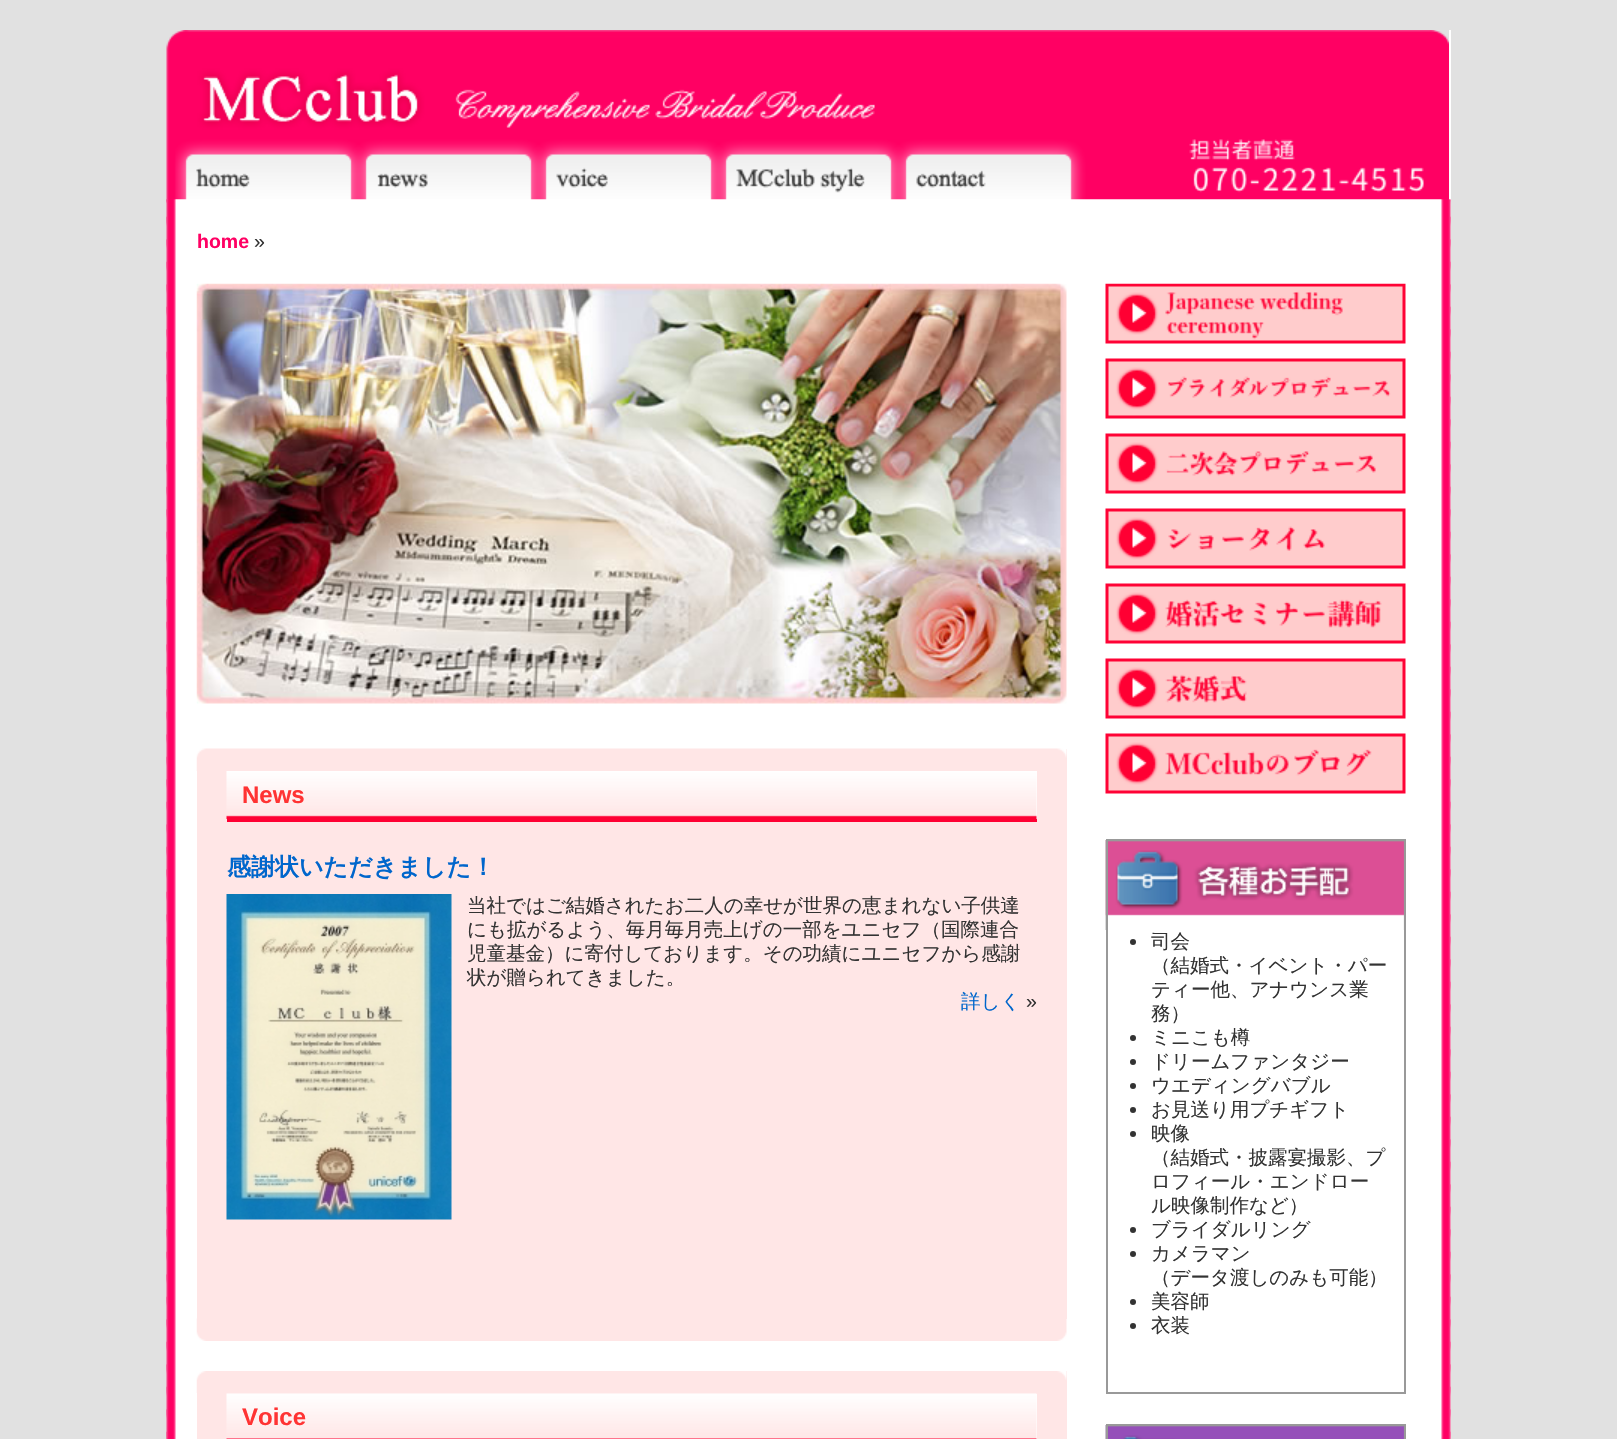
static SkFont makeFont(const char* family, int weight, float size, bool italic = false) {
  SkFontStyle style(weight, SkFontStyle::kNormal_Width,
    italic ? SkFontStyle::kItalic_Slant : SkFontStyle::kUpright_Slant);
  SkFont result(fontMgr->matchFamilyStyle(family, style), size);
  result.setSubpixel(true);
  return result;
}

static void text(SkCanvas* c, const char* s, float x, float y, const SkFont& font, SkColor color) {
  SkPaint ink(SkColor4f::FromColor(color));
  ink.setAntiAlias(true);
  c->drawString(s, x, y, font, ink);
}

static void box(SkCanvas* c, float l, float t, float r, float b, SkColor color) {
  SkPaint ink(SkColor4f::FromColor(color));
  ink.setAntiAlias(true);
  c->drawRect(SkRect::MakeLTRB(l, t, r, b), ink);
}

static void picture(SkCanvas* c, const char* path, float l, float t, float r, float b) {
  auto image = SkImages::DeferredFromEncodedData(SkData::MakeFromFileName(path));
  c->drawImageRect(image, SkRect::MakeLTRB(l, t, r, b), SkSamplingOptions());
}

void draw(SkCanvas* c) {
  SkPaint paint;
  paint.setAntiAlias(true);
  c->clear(0xffe1e1e1);
  box(c, 1449, 30, 1451, 1439, 0xffffffff);
  picture(c, "img_01.png", 166, 30, 1449, 203);
  picture(c, "img_02.png", 166, 199, 1451, 1439);
  picture(c, "img_03.png", 166, 199, 1451, 1439);
  SkFont face1 = makeFont("Liberation Sans", 700, 19.5f);
  text(c, "home", 197, 248, face1, 0xffff0063);
  SkFont face2 = makeFont("Liberation Sans", 400, 19.5f);
  text(c, "»", 254, 248, face2, 0xff333333);
  picture(c, "img_04.png", 196, 283, 1067, 704);
  picture(c, "img_05.png", 196, 1318, 1067, 1341);
  box(c, 197, 749, 1067, 1319, 0xffffe6e6);
  picture(c, "img_06.png", 196, 748, 1067, 771);
  box(c, 1036, 771, 1037, 819, 0xffffffff);
  picture(c, "img_07.png", 226, 771, 1037, 819);
  box(c, 227, 819, 1037, 822, 0xffff0033);
  SkFont face3 = makeFont("Liberation Sans", 700, 24);
  text(c, "News", 242, 803, face3, 0xffff3333);
  SkFont face4 = makeFont("WenQuanYi Zen Hei", 700, 24);
  text(c, "感謝状いただきました！", 227, 875, face4, 0xff0066cc);
  picture(c, "img_08.png", 226, 894, 452, 1220);
  SkFont face5 = makeFont("WenQuanYi Zen Hei", 500, 19.5f);
  text(c, "当社ではご結婚されたお二人の幸せが世界の恵まれない子供達", 467, 912, face5, 0xff333333);
  text(c, "にも拡がるよう、毎月毎月売上げの一部をユニセフ（国際連合", 467, 936, face5, 0xff333333);
  text(c, "児童基金）に寄付しております。その功績にユニセフから感謝", 467, 960, face5, 0xff333333);
  text(c, "状が贈られてきました。", 467, 984, face5, 0xff333333);
  text(c, "詳しく", 961, 1008, face5, 0xff0066cc);
  text(c, "»", 1026, 1008, face2, 0xff333333);
  box(c, 197, 1371, 1067, 1439, 0xffffe6e6);
  picture(c, "img_09.png", 196, 1371, 1067, 1393);
  box(c, 1036, 1394, 1037, 1439, 0xffffffff);
  picture(c, "img_10.png", 226, 1393, 1037, 1439);
  text(c, "Voice", 242, 1425, face3, 0xffff3333);
  picture(c, "img_11.png", 1105, 283, 1406, 794);
  picture(c, "img_12.png", 1105, 840, 1404, 930);
  paint.setStyle(SkPaint::kStroke_Style);
  paint.setStrokeWidth(2);
  paint.setColor(0xff999999);
  c->drawRect(SkRect::MakeLTRB(1107, 840, 1405, 1393), paint);
  paint.setStyle(SkPaint::kFill_Style);
  paint.setColor(0xff333333);
  c->drawCircle(1133, 942, 3, paint);
  text(c, "司会", 1151, 948, face5, 0xff333333);
  text(c, "（結婚式・イベント・パー", 1151, 972, face5, 0xff333333);
  text(c, "ティー他、アナウンス業", 1151, 996, face5, 0xff333333);
  text(c, "務）", 1151, 1020, face5, 0xff333333);
  c->drawCircle(1133, 1038, 3, paint);
  text(c, "ミニこも樽", 1151, 1044, face5, 0xff333333);
  c->drawCircle(1133, 1062, 3, paint);
  text(c, "ドリームファンタジー", 1151, 1068, face5, 0xff333333);
  c->drawCircle(1133, 1086, 3, paint);
  text(c, "ウエディングバブル", 1151, 1092, face5, 0xff333333);
  c->drawCircle(1133, 1110, 3, paint);
  text(c, "お見送り用プチギフト", 1151, 1116, face5, 0xff333333);
  c->drawCircle(1133, 1134, 3, paint);
  text(c, "映像", 1151, 1140, face5, 0xff333333);
  text(c, "（結婚式・披露宴撮影、プ", 1151, 1164, face5, 0xff333333);
  text(c, "ロフィール・エンドロー", 1151, 1188, face5, 0xff333333);
  text(c, "ル映像制作など）", 1151, 1212, face5, 0xff333333);
  c->drawCircle(1133, 1230, 3, paint);
  text(c, "ブライダルリング", 1151, 1236, face5, 0xff333333);
  c->drawCircle(1133, 1254, 3, paint);
  text(c, "カメラマン", 1151, 1260, face5, 0xff333333);
  text(c, "（データ渡しのみも可能）", 1151, 1284, face5, 0xff333333);
  c->drawCircle(1133, 1302, 3, paint);
  text(c, "美容師", 1151, 1308, face5, 0xff333333);
  c->drawCircle(1133, 1326, 3, paint);
  text(c, "衣装", 1151, 1332, face5, 0xff333333);
  picture(c, "img_13.png", 1105, 1425, 1404, 1439);
  paint.setStyle(SkPaint::kStroke_Style);
  paint.setColor(0xff999999);
  c->drawRect(SkRect::MakeLTRB(1107, 1425, 1405, 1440), paint);
}
